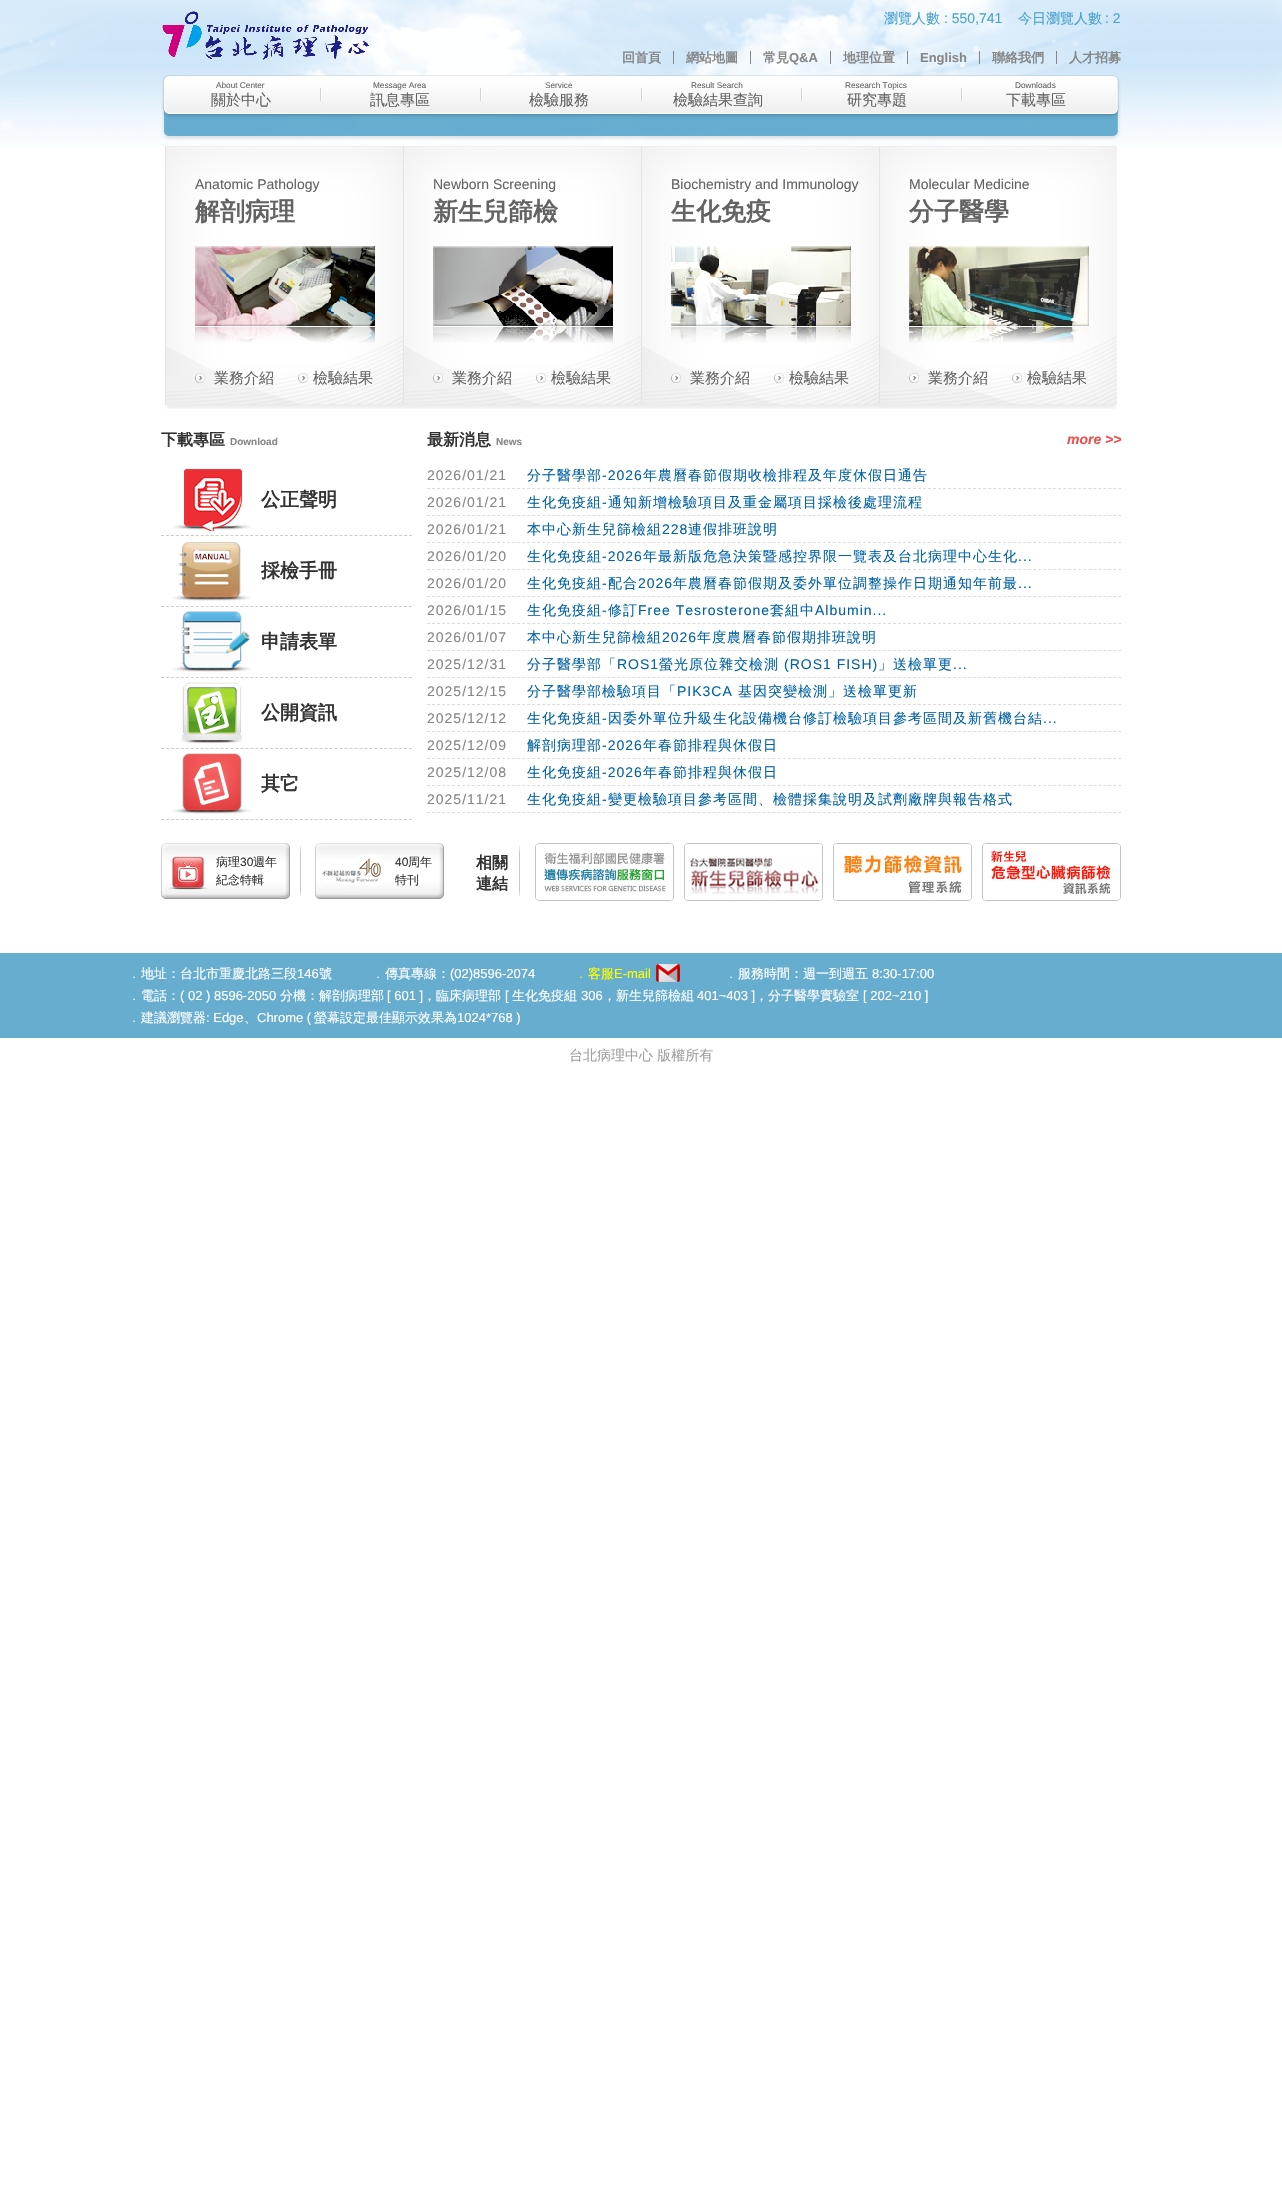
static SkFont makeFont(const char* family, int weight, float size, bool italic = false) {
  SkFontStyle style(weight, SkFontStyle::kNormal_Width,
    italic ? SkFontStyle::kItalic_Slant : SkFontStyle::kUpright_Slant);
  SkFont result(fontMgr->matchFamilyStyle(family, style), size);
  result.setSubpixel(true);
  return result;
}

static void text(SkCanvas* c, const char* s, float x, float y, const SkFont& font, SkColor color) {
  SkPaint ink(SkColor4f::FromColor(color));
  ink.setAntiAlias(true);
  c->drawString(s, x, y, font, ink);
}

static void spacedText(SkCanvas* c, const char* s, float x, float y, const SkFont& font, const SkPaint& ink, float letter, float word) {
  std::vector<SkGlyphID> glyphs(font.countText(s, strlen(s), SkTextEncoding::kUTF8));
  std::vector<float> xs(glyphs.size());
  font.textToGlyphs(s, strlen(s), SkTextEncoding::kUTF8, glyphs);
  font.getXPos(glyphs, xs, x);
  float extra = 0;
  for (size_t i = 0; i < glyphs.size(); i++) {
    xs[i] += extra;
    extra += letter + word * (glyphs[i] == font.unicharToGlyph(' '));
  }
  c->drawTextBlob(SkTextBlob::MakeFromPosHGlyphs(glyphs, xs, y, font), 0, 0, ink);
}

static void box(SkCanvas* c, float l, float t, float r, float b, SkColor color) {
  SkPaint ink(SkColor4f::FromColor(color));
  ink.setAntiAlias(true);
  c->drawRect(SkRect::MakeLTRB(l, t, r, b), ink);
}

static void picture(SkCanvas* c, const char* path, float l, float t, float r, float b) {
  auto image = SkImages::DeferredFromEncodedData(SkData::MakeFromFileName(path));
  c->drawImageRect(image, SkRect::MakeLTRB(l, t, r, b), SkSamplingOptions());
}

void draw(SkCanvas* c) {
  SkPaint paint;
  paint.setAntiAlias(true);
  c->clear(0xffffffff);
  picture(c, "img_01.png", 0, 0, 1282, 148);
  picture(c, "img_02.png", 162, 11, 369, 61);
  SkFont face1 = makeFont("WenQuanYi Zen Hei", 500, 14);
  text(c, "瀏覽人數", 884, 23, face1, 0xff4aa2cd);
  SkFont face2 = makeFont("Liberation Sans", 400, 14);
  text(c, ": 550,741", 944, 23, face2, 0xff4aa2cd);
  text(c, "今日瀏覽人數", 1018, 23, face1, 0xff4aa2cd);
  text(c, ": 2", 1105, 23, face2, 0xff4aa2cd);
  box(c, 673, 51, 674, 64, 0xff868686);
  SkFont face3 = makeFont("WenQuanYi Zen Hei", 700, 13);
  text(c, "回首頁", 622, 62, face3, 0xff868686);
  box(c, 750, 51, 751, 64, 0xff868686);
  text(c, "網站地圖", 686, 62, face3, 0xff868686);
  box(c, 830, 51, 831, 64, 0xff868686);
  text(c, "常見", 763, 62, face3, 0xff868686);
  SkFont face4 = makeFont("Liberation Sans", 700, 13);
  text(c, "Q&A", 789, 62, face4, 0xff868686);
  box(c, 907, 51, 908, 64, 0xff868686);
  text(c, "地理位置", 843, 62, face3, 0xff868686);
  box(c, 979, 51, 980, 64, 0xff868686);
  text(c, "English", 920, 62, face4, 0xff868686);
  box(c, 1056, 51, 1057, 64, 0xff868686);
  text(c, "聯絡我們", 992, 62, face3, 0xff868686);
  text(c, "人才招募", 1069, 62, face3, 0xff868686);
  picture(c, "img_03.png", 161, 75, 1121, 140);
  SkFont face5 = makeFont("Liberation Sans", 400, 8.25f);
  text(c, "About Center", 216, 88, face5, 0xff636363);
  SkFont face6 = makeFont("WenQuanYi Zen Hei", 500, 15);
  text(c, "關於中心", 211, 105, face6, 0xff636363);
  text(c, "Message Area", 373, 88, face5, 0xff636363);
  text(c, "訊息專區", 370, 105, face6, 0xff636363);
  text(c, "Service", 545, 88, face5, 0xff636363);
  text(c, "檢驗服務", 529, 105, face6, 0xff636363);
  text(c, "Result Search", 691, 88, face5, 0xff636363);
  text(c, "檢驗結果查詢", 673, 105, face6, 0xff636363);
  text(c, "Research Topics", 845, 88, face5, 0xff636363);
  text(c, "研究專題", 847, 105, face6, 0xff636363);
  text(c, "Downloads", 1015, 88, face5, 0xff636363);
  text(c, "下載專區", 1006, 105, face6, 0xff636363);
  picture(c, "img_04.png", 165, 404, 1117, 409);
  picture(c, "img_05.png", 165, 146, 403, 405);
  text(c, "Anatomic Pathology", 195, 189, face2, 0xff636363);
  SkFont face7 = makeFont("WenQuanYi Zen Hei", 700, 25);
  text(c, "解剖病理", 195, 220, face7, 0xff636363);
  picture(c, "img_06.png", 195, 246, 375, 343);
  picture(c, "img_07.png", 195, 373, 205, 383);
  text(c, "業務介紹", 214, 383, face6, 0xff636363);
  picture(c, "img_08.png", 298, 373, 308, 383);
  text(c, "檢驗結果", 313, 383, face6, 0xff636363);
  picture(c, "img_09.png", 403, 146, 641, 405);
  text(c, "Newborn Screening", 433, 189, face2, 0xff636363);
  text(c, "新生兒篩檢", 433, 220, face7, 0xff636363);
  picture(c, "img_10.png", 433, 246, 613, 343);
  picture(c, "img_07.png", 433, 373, 443, 383);
  text(c, "業務介紹", 452, 383, face6, 0xff636363);
  picture(c, "img_08.png", 536, 373, 546, 383);
  text(c, "檢驗結果", 551, 383, face6, 0xff636363);
  picture(c, "img_09.png", 641, 146, 879, 405);
  text(c, "Biochemistry and Immunology", 671, 189, face2, 0xff636363);
  text(c, "生化免疫", 671, 220, face7, 0xff636363);
  picture(c, "img_11.png", 671, 246, 851, 343);
  picture(c, "img_07.png", 671, 373, 681, 383);
  text(c, "業務介紹", 690, 383, face6, 0xff636363);
  picture(c, "img_08.png", 774, 373, 784, 383);
  text(c, "檢驗結果", 789, 383, face6, 0xff636363);
  picture(c, "img_12.png", 879, 146, 1117, 405);
  text(c, "Molecular Medicine", 909, 189, face2, 0xff636363);
  text(c, "分子醫學", 909, 220, face7, 0xff636363);
  picture(c, "img_13.png", 909, 246, 1089, 343);
  picture(c, "img_07.png", 909, 373, 919, 383);
  text(c, "業務介紹", 928, 383, face6, 0xff636363);
  picture(c, "img_08.png", 1012, 373, 1022, 383);
  text(c, "檢驗結果", 1027, 383, face6, 0xff636363);
  c->save();
  c->clipRect(SkRect::MakeLTRB(161, 432, 1121, 823));
  SkFont face8 = makeFont("WenQuanYi Zen Hei", 700, 16);
  text(c, "下載專區", 161, 445, face8, 0xff333333);
  c->restore();
  SkFont face9 = makeFont("Liberation Sans", 700, 10);
  text(c, "Download", 230, 445, face9, 0xff868686);
  paint.setStyle(SkPaint::kStroke_Style);
  paint.setStrokeWidth(1);
  paint.setColor(0xffcccccc);
  paint.setPathEffect(SkDashPathEffect::Make({{3, 1.96f}}, 0));
  c->drawPath(SkPathBuilder().moveTo(161, 535.5f).lineTo(412, 535.5f).detach(), paint);
  paint.setPathEffect(nullptr);
  picture(c, "img_14.png", 172, 469, 251, 531);
  SkFont face10 = makeFont("WenQuanYi Zen Hei", 700, 19);
  text(c, "公正聲明", 261, 506, face10, 0xff333333);
  paint.setPathEffect(SkDashPathEffect::Make({{3, 1.96f}}, 0));
  c->drawPath(SkPathBuilder().moveTo(161, 606.5f).lineTo(412, 606.5f).detach(), paint);
  paint.setPathEffect(nullptr);
  picture(c, "img_15.png", 171, 542, 251, 601);
  text(c, "採檢手冊", 261, 577, face10, 0xff333333);
  paint.setPathEffect(SkDashPathEffect::Make({{3, 1.96f}}, 0));
  c->drawPath(SkPathBuilder().moveTo(161, 677.5f).lineTo(412, 677.5f).detach(), paint);
  paint.setPathEffect(nullptr);
  picture(c, "img_16.png", 172, 611, 251, 672);
  text(c, "申請表單", 261, 648, face10, 0xff333333);
  paint.setPathEffect(SkDashPathEffect::Make({{3, 1.96f}}, 0));
  c->drawPath(SkPathBuilder().moveTo(161, 748.5f).lineTo(412, 748.5f).detach(), paint);
  paint.setPathEffect(nullptr);
  picture(c, "img_17.png", 180, 682, 243, 744);
  text(c, "公開資訊", 261, 719, face10, 0xff333333);
  paint.setPathEffect(SkDashPathEffect::Make({{3, 1.96f}}, 0));
  c->drawPath(SkPathBuilder().moveTo(161, 819.5f).lineTo(412, 819.5f).detach(), paint);
  paint.setPathEffect(nullptr);
  picture(c, "img_18.png", 172, 753, 251, 814);
  text(c, "其它", 261, 790, face10, 0xff333333);
  text(c, "最新消息", 427, 445, face8, 0xff333333);
  text(c, "News", 496, 445, face9, 0xff868686);
  SkFont face11 = makeFont("Liberation Sans", 700, 14, true);
  text(c, "more >>", 1067, 444, face11, 0xffec4f50);
  paint.setColor(0xffdcdcdc);
  paint.setPathEffect(SkDashPathEffect::Make({{3, 2.01f}}, 0));
  c->drawPath(SkPathBuilder().moveTo(427, 488.5f).lineTo(1121, 488.5f).detach(), paint);
  paint.setPathEffect(nullptr);
  paint.setStyle(SkPaint::kFill_Style);
  paint.setColor(0xff868686);
  spacedText(c, "2026/01/21", 427, 480, face2, paint, 1, 0);
  paint.setColor(0xff0162a6);
  spacedText(c, "分子醫學部", 527, 480, face1, paint, 1, 0);
  spacedText(c, "-2026", 602, 480, face2, paint, 1, 0);
  spacedText(c, "年農曆春節假期收檢排程及年度休假日通告", 643, 480, face1, paint, 1, 0);
  paint.setStyle(SkPaint::kStroke_Style);
  paint.setColor(0xffdcdcdc);
  paint.setPathEffect(SkDashPathEffect::Make({{3, 2.01f}}, 0));
  c->drawPath(SkPathBuilder().moveTo(427, 515.5f).lineTo(1121, 515.5f).detach(), paint);
  paint.setPathEffect(nullptr);
  paint.setStyle(SkPaint::kFill_Style);
  paint.setColor(0xff868686);
  spacedText(c, "2026/01/21", 427, 507, face2, paint, 1, 0);
  paint.setColor(0xff0162a6);
  spacedText(c, "生化免疫組", 527, 507, face1, paint, 1, 0);
  spacedText(c, "-", 602, 507, face2, paint, 1, 0);
  spacedText(c, "通知新增檢驗項目及重金屬項目採檢後處理流程", 608, 507, face1, paint, 1, 0);
  paint.setStyle(SkPaint::kStroke_Style);
  paint.setColor(0xffdcdcdc);
  paint.setPathEffect(SkDashPathEffect::Make({{3, 2.01f}}, 0));
  c->drawPath(SkPathBuilder().moveTo(427, 542.5f).lineTo(1121, 542.5f).detach(), paint);
  paint.setPathEffect(nullptr);
  paint.setStyle(SkPaint::kFill_Style);
  paint.setColor(0xff868686);
  spacedText(c, "2026/01/21", 427, 534, face2, paint, 1, 0);
  paint.setColor(0xff0162a6);
  spacedText(c, "本中心新生兒篩檢組", 527, 534, face1, paint, 1, 0);
  spacedText(c, "228", 662, 534, face2, paint, 1, 0);
  spacedText(c, "連假排班說明", 688, 534, face1, paint, 1, 0);
  paint.setStyle(SkPaint::kStroke_Style);
  paint.setColor(0xffdcdcdc);
  paint.setPathEffect(SkDashPathEffect::Make({{3, 2.01f}}, 0));
  c->drawPath(SkPathBuilder().moveTo(427, 569.5f).lineTo(1121, 569.5f).detach(), paint);
  paint.setPathEffect(nullptr);
  paint.setStyle(SkPaint::kFill_Style);
  paint.setColor(0xff868686);
  spacedText(c, "2026/01/20", 427, 561, face2, paint, 1, 0);
  paint.setColor(0xff0162a6);
  spacedText(c, "生化免疫組", 527, 561, face1, paint, 1, 0);
  spacedText(c, "-2026", 602, 561, face2, paint, 1, 0);
  spacedText(c, "年最新版危急決策暨感控界限一覽表及台北病理中心生化", 643, 561, face1, paint, 1, 0);
  spacedText(c, "...", 1018, 561, face2, paint, 1, 0);
  paint.setStyle(SkPaint::kStroke_Style);
  paint.setColor(0xffdcdcdc);
  paint.setPathEffect(SkDashPathEffect::Make({{3, 2.01f}}, 0));
  c->drawPath(SkPathBuilder().moveTo(427, 596.5f).lineTo(1121, 596.5f).detach(), paint);
  paint.setPathEffect(nullptr);
  paint.setStyle(SkPaint::kFill_Style);
  paint.setColor(0xff868686);
  spacedText(c, "2026/01/20", 427, 588, face2, paint, 1, 0);
  paint.setColor(0xff0162a6);
  spacedText(c, "生化免疫組", 527, 588, face1, paint, 1, 0);
  spacedText(c, "-", 602, 588, face2, paint, 1, 0);
  spacedText(c, "配合", 608, 588, face1, paint, 1, 0);
  spacedText(c, "2026", 638, 588, face2, paint, 1, 0);
  spacedText(c, "年農曆春節假期及委外單位調整操作日期通知年前最", 673, 588, face1, paint, 1, 0);
  spacedText(c, "...", 1018, 588, face2, paint, 1, 0);
  paint.setStyle(SkPaint::kStroke_Style);
  paint.setColor(0xffdcdcdc);
  paint.setPathEffect(SkDashPathEffect::Make({{3, 2.01f}}, 0));
  c->drawPath(SkPathBuilder().moveTo(427, 623.5f).lineTo(1121, 623.5f).detach(), paint);
  paint.setPathEffect(nullptr);
  paint.setStyle(SkPaint::kFill_Style);
  paint.setColor(0xff868686);
  spacedText(c, "2026/01/15", 427, 615, face2, paint, 1, 0);
  paint.setColor(0xff0162a6);
  spacedText(c, "生化免疫組", 527, 615, face1, paint, 1, 0);
  spacedText(c, "-", 602, 615, face2, paint, 1, 0);
  spacedText(c, "修訂", 608, 615, face1, paint, 1, 0);
  spacedText(c, "Free Tesrosterone", 638, 615, face2, paint, 1, 0);
  spacedText(c, "套組中", 770, 615, face1, paint, 1, 0);
  spacedText(c, "Albumin...", 815, 615, face2, paint, 1, 0);
  paint.setStyle(SkPaint::kStroke_Style);
  paint.setColor(0xffdcdcdc);
  paint.setPathEffect(SkDashPathEffect::Make({{3, 2.01f}}, 0));
  c->drawPath(SkPathBuilder().moveTo(427, 650.5f).lineTo(1121, 650.5f).detach(), paint);
  paint.setPathEffect(nullptr);
  paint.setStyle(SkPaint::kFill_Style);
  paint.setColor(0xff868686);
  spacedText(c, "2026/01/07", 427, 642, face2, paint, 1, 0);
  paint.setColor(0xff0162a6);
  spacedText(c, "本中心新生兒篩檢組", 527, 642, face1, paint, 1, 0);
  spacedText(c, "2026", 662, 642, face2, paint, 1, 0);
  spacedText(c, "年度農曆春節假期排班說明", 697, 642, face1, paint, 1, 0);
  paint.setStyle(SkPaint::kStroke_Style);
  paint.setColor(0xffdcdcdc);
  paint.setPathEffect(SkDashPathEffect::Make({{3, 2.01f}}, 0));
  c->drawPath(SkPathBuilder().moveTo(427, 677.5f).lineTo(1121, 677.5f).detach(), paint);
  paint.setPathEffect(nullptr);
  paint.setStyle(SkPaint::kFill_Style);
  paint.setColor(0xff868686);
  spacedText(c, "2025/12/31", 427, 669, face2, paint, 1, 0);
  paint.setColor(0xff0162a6);
  spacedText(c, "分子醫學部「", 527, 669, face1, paint, 1, 0);
  spacedText(c, "ROS1", 617, 669, face2, paint, 1, 0);
  spacedText(c, "螢光原位雜交檢測", 659, 669, face1, paint, 1, 0);
  spacedText(c, "(ROS1 FISH)", 784, 669, face2, paint, 1, 0);
  spacedText(c, "」送檢單更", 878, 669, face1, paint, 1, 0);
  spacedText(c, "...", 953, 669, face2, paint, 1, 0);
  paint.setStyle(SkPaint::kStroke_Style);
  paint.setColor(0xffdcdcdc);
  paint.setPathEffect(SkDashPathEffect::Make({{3, 2.01f}}, 0));
  c->drawPath(SkPathBuilder().moveTo(427, 704.5f).lineTo(1121, 704.5f).detach(), paint);
  paint.setPathEffect(nullptr);
  paint.setStyle(SkPaint::kFill_Style);
  paint.setColor(0xff868686);
  spacedText(c, "2025/12/15", 427, 696, face2, paint, 1, 0);
  paint.setColor(0xff0162a6);
  spacedText(c, "分子醫學部檢驗項目「", 527, 696, face1, paint, 1, 0);
  spacedText(c, "PIK3CA", 677, 696, face2, paint, 1, 0);
  spacedText(c, "基因突變檢測」送檢單更新", 738, 696, face1, paint, 1, 0);
  paint.setStyle(SkPaint::kStroke_Style);
  paint.setColor(0xffdcdcdc);
  paint.setPathEffect(SkDashPathEffect::Make({{3, 2.01f}}, 0));
  c->drawPath(SkPathBuilder().moveTo(427, 731.5f).lineTo(1121, 731.5f).detach(), paint);
  paint.setPathEffect(nullptr);
  paint.setStyle(SkPaint::kFill_Style);
  paint.setColor(0xff868686);
  spacedText(c, "2025/12/12", 427, 723, face2, paint, 1, 0);
  paint.setColor(0xff0162a6);
  spacedText(c, "生化免疫組", 527, 723, face1, paint, 1, 0);
  spacedText(c, "-", 602, 723, face2, paint, 1, 0);
  spacedText(c, "因委外單位升級生化設備機台修訂檢驗項目參考區間及新舊機台結", 608, 723, face1, paint, 1, 0);
  spacedText(c, "...", 1043, 723, face2, paint, 1, 0);
  paint.setStyle(SkPaint::kStroke_Style);
  paint.setColor(0xffdcdcdc);
  paint.setPathEffect(SkDashPathEffect::Make({{3, 2.01f}}, 0));
  c->drawPath(SkPathBuilder().moveTo(427, 758.5f).lineTo(1121, 758.5f).detach(), paint);
  paint.setPathEffect(nullptr);
  paint.setStyle(SkPaint::kFill_Style);
  paint.setColor(0xff868686);
  spacedText(c, "2025/12/09", 427, 750, face2, paint, 1, 0);
  paint.setColor(0xff0162a6);
  spacedText(c, "解剖病理部", 527, 750, face1, paint, 1, 0);
  spacedText(c, "-2026", 602, 750, face2, paint, 1, 0);
  spacedText(c, "年春節排程與休假日", 643, 750, face1, paint, 1, 0);
  paint.setStyle(SkPaint::kStroke_Style);
  paint.setColor(0xffdcdcdc);
  paint.setPathEffect(SkDashPathEffect::Make({{3, 2.01f}}, 0));
  c->drawPath(SkPathBuilder().moveTo(427, 785.5f).lineTo(1121, 785.5f).detach(), paint);
  paint.setPathEffect(nullptr);
  paint.setStyle(SkPaint::kFill_Style);
  paint.setColor(0xff868686);
  spacedText(c, "2025/12/08", 427, 777, face2, paint, 1, 0);
  paint.setColor(0xff0162a6);
  spacedText(c, "生化免疫組", 527, 777, face1, paint, 1, 0);
  spacedText(c, "-2026", 602, 777, face2, paint, 1, 0);
  spacedText(c, "年春節排程與休假日", 643, 777, face1, paint, 1, 0);
  paint.setStyle(SkPaint::kStroke_Style);
  paint.setColor(0xffdcdcdc);
  paint.setPathEffect(SkDashPathEffect::Make({{3, 2.01f}}, 0));
  c->drawPath(SkPathBuilder().moveTo(427, 812.5f).lineTo(1121, 812.5f).detach(), paint);
  paint.setPathEffect(nullptr);
  paint.setStyle(SkPaint::kFill_Style);
  paint.setColor(0xff868686);
  spacedText(c, "2025/11/21", 427, 804, face2, paint, 1, 0);
  paint.setColor(0xff0162a6);
  spacedText(c, "生化免疫組", 527, 804, face1, paint, 1, 0);
  spacedText(c, "-", 602, 804, face2, paint, 1, 0);
  spacedText(c, "變更檢驗項目參考區間、檢體採集說明及試劑廠牌與報告格式", 608, 804, face1, paint, 1, 0);
  picture(c, "img_19.png", 161, 843, 290, 899);
  SkFont face12 = makeFont("WenQuanYi Zen Hei", 500, 12);
  text(c, "病理", 216, 866, face12, 0xff333333);
  SkFont face13 = makeFont("Liberation Sans", 400, 12);
  text(c, "30", 240, 866, face13, 0xff333333);
  text(c, "週年", 253, 866, face12, 0xff333333);
  text(c, "紀念特輯", 216, 884, face12, 0xff333333);
  picture(c, "img_20.png", 300, 845, 301, 896);
  picture(c, "img_21.png", 315, 843, 444, 899);
  text(c, "40", 395, 866, face13, 0xff333333);
  text(c, "周年", 408, 866, face12, 0xff333333);
  text(c, "特刊", 395, 884, face12, 0xff333333);
  text(c, "相關", 476, 868, face8, 0xff333333);
  text(c, "連結", 476, 889, face8, 0xff333333);
  picture(c, "img_20.png", 519, 845, 520, 896);
  paint.setStyle(SkPaint::kStroke_Style);
  paint.setColor(0xffc4c4c4);
  c->drawRoundRect(SkRect::MakeLTRB(535.5f, 843.5f, 673.5f, 900.5f), 3.5f, 3.5f, paint);
  picture(c, "img_22.png", 536, 844, 673, 900);
  c->drawRoundRect(SkRect::MakeLTRB(684.5f, 843.5f, 822.5f, 900.5f), 3.5f, 3.5f, paint);
  picture(c, "img_23.png", 685, 844, 822, 900);
  c->drawRoundRect(SkRect::MakeLTRB(833.5f, 843.5f, 971.5f, 900.5f), 3.5f, 3.5f, paint);
  picture(c, "img_24.png", 834, 844, 971, 900);
  c->drawRoundRect(SkRect::MakeLTRB(982.5f, 843.5f, 1120.5f, 900.5f), 3.5f, 3.5f, paint);
  picture(c, "img_25.png", 983, 844, 1120, 900);
  box(c, 0, 953, 1282, 1038, 0xff66add0);
  SkFont face14 = makeFont("WenQuanYi Zen Hei", 500, 13);
  text(c, "﹒地址：台北市重慶北路三段", 128, 978, face14, 0xffffffff);
  SkFont face15 = makeFont("Liberation Sans", 400, 13);
  text(c, "146", 297, 978, face15, 0xffffffff);
  text(c, "號", 319, 978, face14, 0xffffffff);
  text(c, "﹒傳真專線：", 372, 978, face14, 0xffffffff);
  text(c, "(02)8596-2074", 450, 978, face15, 0xffffffff);
  picture(c, "img_26.png", 656, 964, 680, 982);
  text(c, "﹒客服", 575, 978, face14, 0xfffcff00);
  text(c, "E-mail", 614, 978, face15, 0xfffcff00);
  text(c, "﹒服務時間：週一到週五", 725, 978, face14, 0xffffffff);
  text(c, "8:30-17:00", 872, 978, face15, 0xffffffff);
  text(c, "﹒電話：", 128, 1000, face14, 0xffffffff);
  text(c, "( 02 ) 8596-2050", 180, 1000, face15, 0xffffffff);
  text(c, "分機：解剖病理部", 280, 1000, face14, 0xffffffff);
  text(c, "[ 601 ]", 387, 1000, face15, 0xffffffff);
  text(c, "，臨床病理部", 423, 1000, face14, 0xffffffff);
  text(c, "[", 505, 1000, face15, 0xffffffff);
  text(c, "生化免疫組", 512, 1000, face14, 0xffffffff);
  text(c, "306", 581, 1000, face15, 0xffffffff);
  text(c, "，新生兒篩檢組", 603, 1000, face14, 0xffffffff);
  text(c, "401~403 ]", 697, 1000, face15, 0xffffffff);
  text(c, "，分子醫學實驗室", 755, 1000, face14, 0xffffffff);
  text(c, "[ 202~210 ]", 863, 1000, face15, 0xffffffff);
  text(c, "﹒建議瀏覽器", 128, 1022, face14, 0xffffffff);
  text(c, ": Edge", 206, 1022, face15, 0xffffffff);
  text(c, "、", 244, 1022, face14, 0xffffffff);
  text(c, "Chrome (", 257, 1022, face15, 0xffffffff);
  text(c, "螢幕設定最佳顯示效果為", 314, 1022, face14, 0xffffffff);
  text(c, "1024*768 )", 457, 1022, face15, 0xffffffff);
  text(c, "台北病理中心 版權所有", 569, 1060, face1, 0xff9e9e9e);
}
